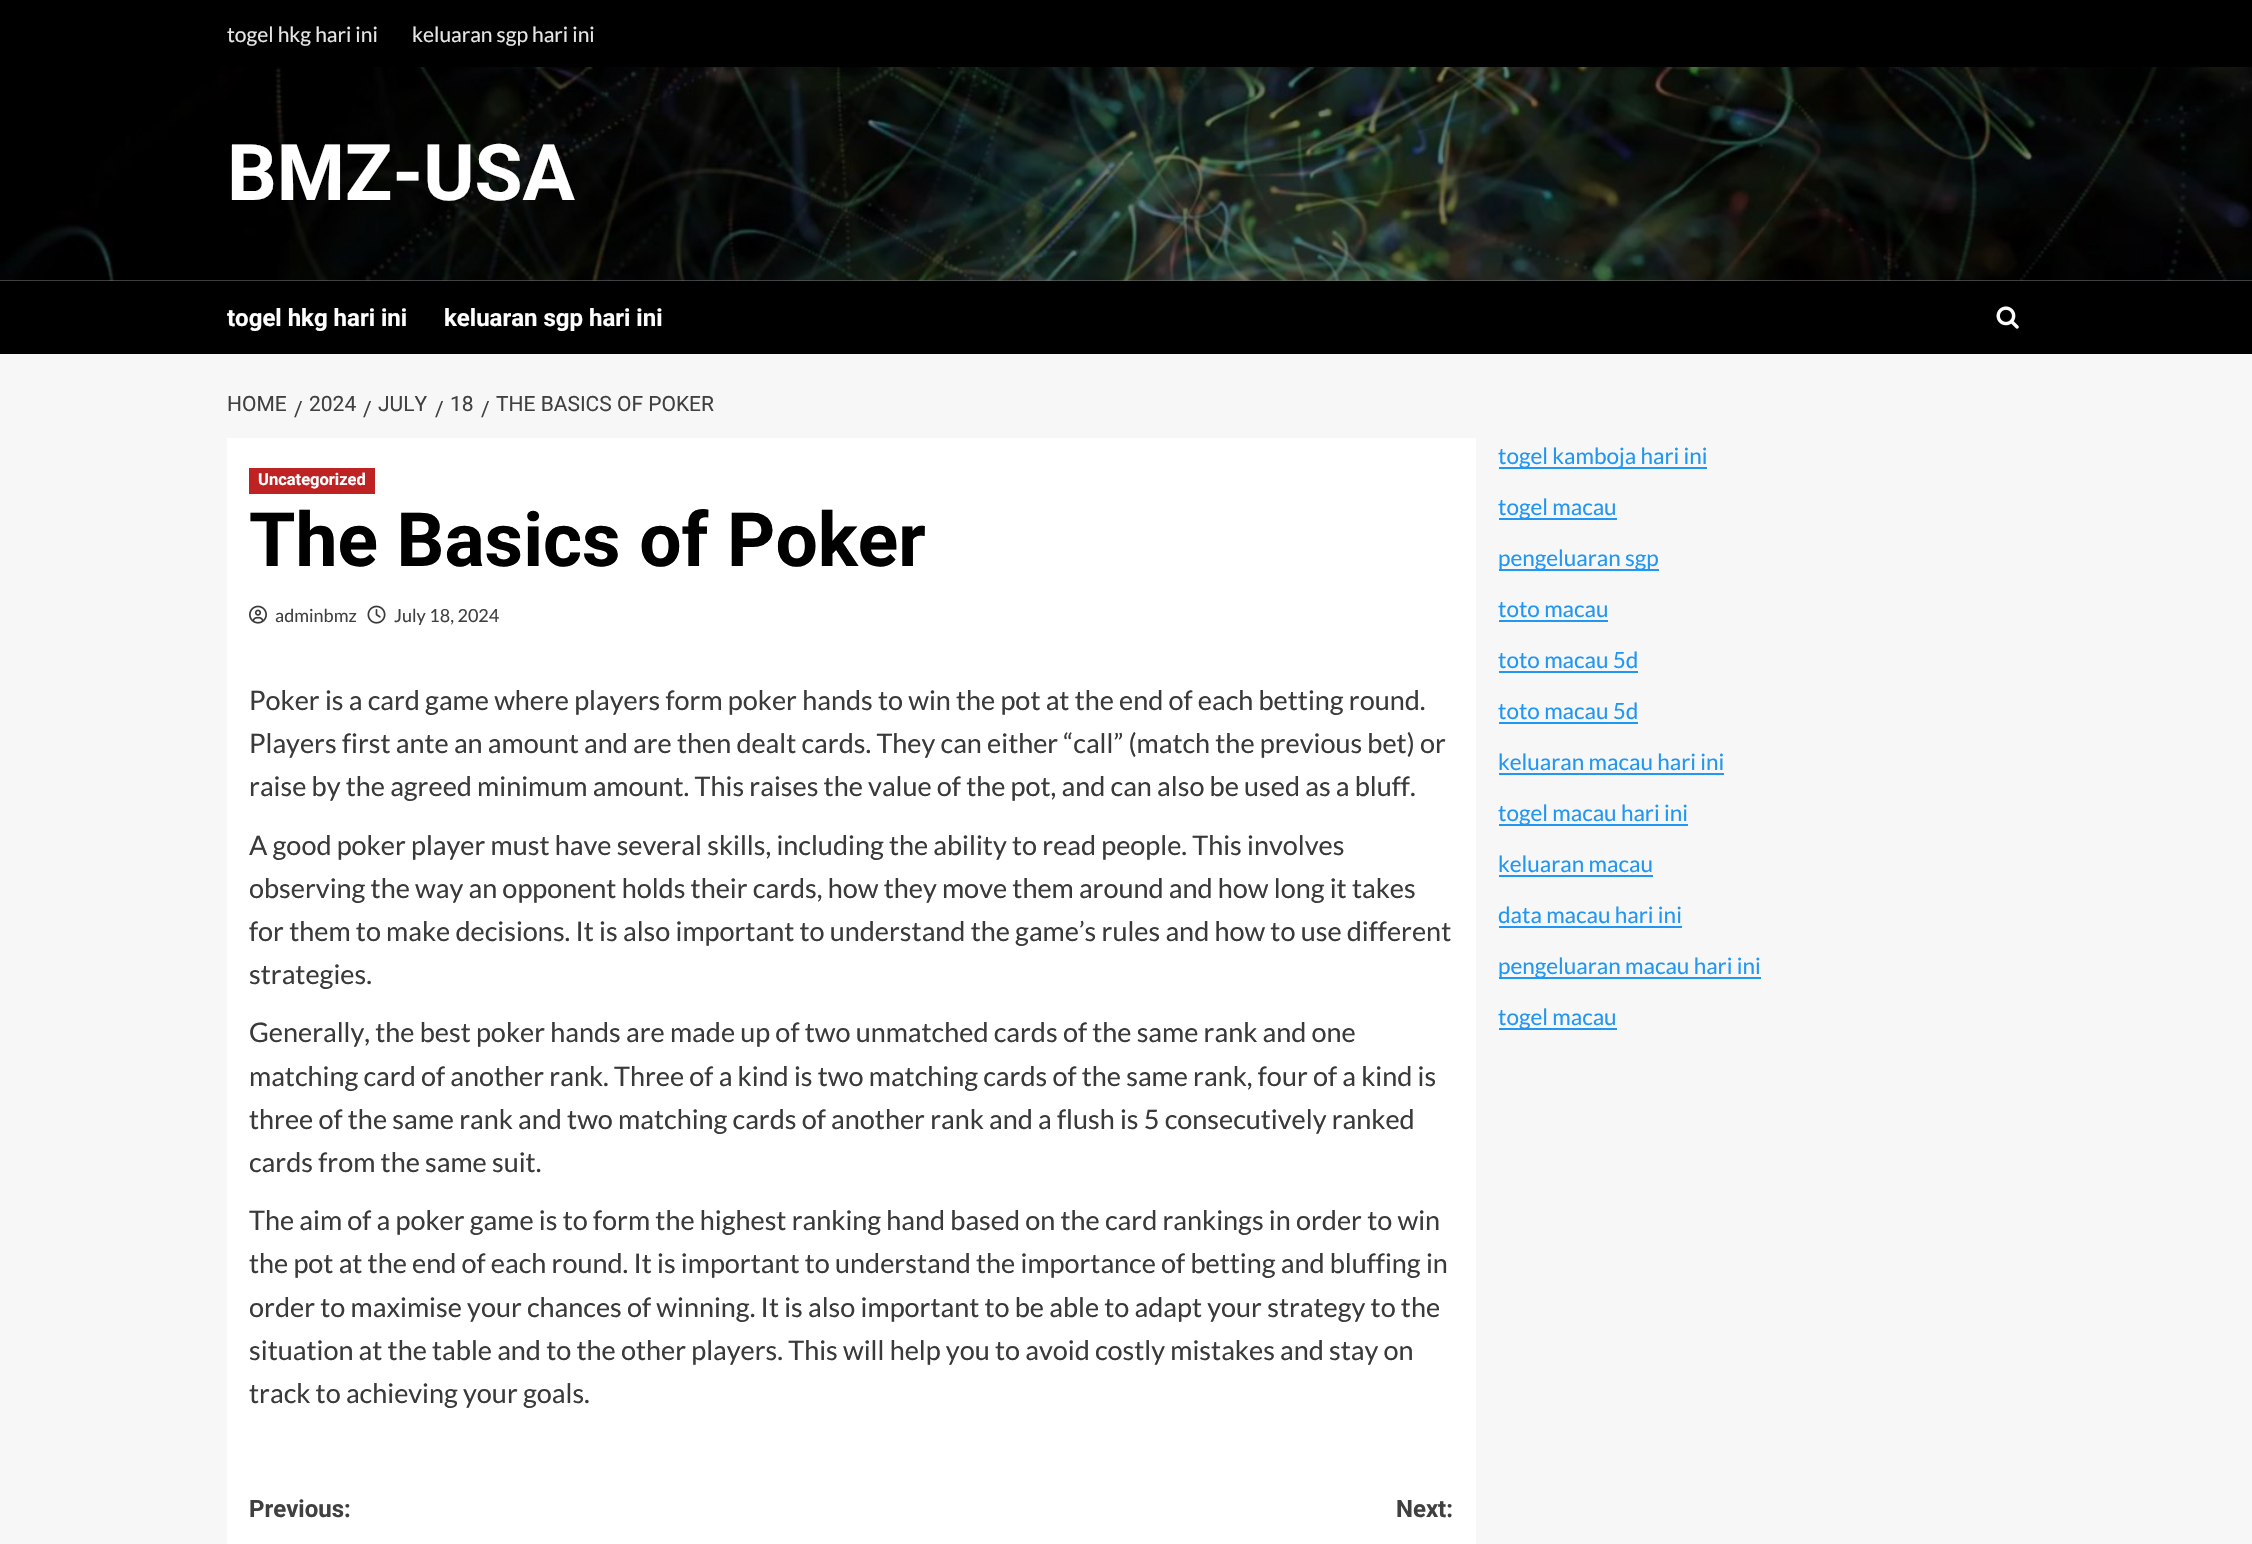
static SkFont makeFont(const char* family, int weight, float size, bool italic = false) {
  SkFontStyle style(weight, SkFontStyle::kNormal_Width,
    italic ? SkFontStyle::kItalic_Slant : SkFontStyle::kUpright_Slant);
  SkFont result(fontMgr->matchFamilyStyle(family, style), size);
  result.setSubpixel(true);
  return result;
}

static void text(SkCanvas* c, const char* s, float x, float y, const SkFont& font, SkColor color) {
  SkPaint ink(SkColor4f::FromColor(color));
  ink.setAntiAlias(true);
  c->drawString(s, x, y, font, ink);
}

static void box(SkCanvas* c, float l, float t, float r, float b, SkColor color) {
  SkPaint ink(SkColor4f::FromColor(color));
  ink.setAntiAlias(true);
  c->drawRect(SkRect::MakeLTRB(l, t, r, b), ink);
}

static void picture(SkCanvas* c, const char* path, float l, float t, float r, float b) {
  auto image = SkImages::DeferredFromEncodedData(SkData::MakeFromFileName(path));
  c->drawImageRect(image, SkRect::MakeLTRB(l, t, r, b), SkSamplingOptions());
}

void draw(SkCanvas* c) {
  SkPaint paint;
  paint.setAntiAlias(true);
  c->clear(0xfff7f7f7);
  box(c, 0, 280, 2252, 281, 0xff7c7c7c);
  box(c, 0, 0, 2252, 68, 0xff000000);
  SkFont face1 = makeFont("Lato", 400, 21);
  text(c, "togel hkg hari ini", 227, 42, face1, 0xffe6e6e6);
  text(c, "keluaran sgp hari ini", 412, 42, face1, 0xffe6e6e6);
  picture(c, "img_01.png", 0, 67, 2252, 281);
  SkFont face2 = makeFont("Roboto", 700, 78);
  text(c, "BMZ-USA", 227, 200, face2, 0xffffffff);
  box(c, 0, 281, 2252, 354, 0xff000000);
  SkFont face3 = makeFont("Roboto", 700, 24);
  text(c, "togel hkg hari ini", 227, 326, face3, 0xffffffff);
  text(c, "keluaran sgp hari ini", 444, 326, face3, 0xffffffff);
  picture(c, "img_02.png", 1996, 306, 2019, 329);
  SkFont face4 = makeFont("Roboto", 400, 21);
  text(c, "HOME", 227, 411, face4, 0xff404040);
  text(c, "/", 294, 416, face4, 0xff404040);
  text(c, "2024", 309, 411, face4, 0xff404040);
  text(c, "/", 363, 416, face4, 0xff404040);
  text(c, "JULY", 378, 411, face4, 0xff404040);
  text(c, "/", 435, 416, face4, 0xff404040);
  text(c, "18", 450, 411, face4, 0xff404040);
  text(c, "/", 481, 416, face4, 0xff404040);
  text(c, "THE BASICS OF POKER", 496, 411, face4, 0xff404040);
  box(c, 227, 438, 1476, 1544, 0xffffffff);
  box(c, 249, 468, 375, 494, 0xffbe2222);
  SkFont face5 = makeFont("Roboto", 700, 16.5f);
  text(c, "Uncategorized", 258, 485, face5, 0xffffffff);
  SkFont face6 = makeFont("Roboto", 700, 75);
  text(c, "The Basics of Poker", 249, 566, face6, 0xff000000);
  picture(c, "img_03.png", 249, 605, 267, 624);
  SkFont face7 = makeFont("Lato", 400, 18);
  text(c, "adminbmz", 275, 622, face7, 0xff404040);
  picture(c, "img_04.png", 367, 605, 386, 624);
  text(c, "July 18, 2024", 394, 622, face7, 0xff404040);
  SkFont face8 = makeFont("Lato", 400, 27);
  text(c, "Poker is a card game where players form poker hands to win the pot at the end of each betting round.", 249, 710, face8, 0xff3a3a3a);
  text(c, "Players first ante an amount and are then dealt cards. They can either “call” (match the previous bet) or", 249, 753, face8, 0xff3a3a3a);
  text(c, "raise by the agreed minimum amount. This raises the value of the pot, and can also be used as a bluff.", 249, 796, face8, 0xff3a3a3a);
  text(c, "A good poker player must have several skills, including the ability to read people. This involves", 249, 855, face8, 0xff3a3a3a);
  text(c, "observing the way an opponent holds their cards, how they move them around and how long it takes", 249, 898, face8, 0xff3a3a3a);
  text(c, "for them to make decisions. It is also important to understand the game’s rules and how to use different", 249, 941, face8, 0xff3a3a3a);
  text(c, "strategies.", 249, 984, face8, 0xff3a3a3a);
  text(c, "Generally, the best poker hands are made up of two unmatched cards of the same rank and one", 249, 1042, face8, 0xff3a3a3a);
  text(c, "matching card of another rank. Three of a kind is two matching cards of the same rank, four of a kind is", 249, 1086, face8, 0xff3a3a3a);
  text(c, "three of the same rank and two matching cards of another rank and a flush is 5 consecutively ranked", 249, 1129, face8, 0xff3a3a3a);
  text(c, "cards from the same suit.", 249, 1172, face8, 0xff3a3a3a);
  text(c, "The aim of a poker game is to form the highest ranking hand based on the card rankings in order to win", 249, 1230, face8, 0xff3a3a3a);
  text(c, "the pot at the end of each round. It is important to understand the importance of betting and bluffing in", 249, 1273, face8, 0xff3a3a3a);
  text(c, "order to maximise your chances of winning. It is also important to be able to adapt your strategy to the", 249, 1317, face8, 0xff3a3a3a);
  text(c, "situation at the table and to the other players. This will help you to avoid costly mistakes and stay on", 249, 1360, face8, 0xff3a3a3a);
  text(c, "track to achieving your goals.", 249, 1403, face8, 0xff3a3a3a);
  text(c, "Previous:", 249, 1517, face3, 0xff404040);
  text(c, "Next:", 1396, 1517, face3, 0xff404040);
  box(c, 1499, 467, 1707, 469, 0xff2196f3);
  SkFont face9 = makeFont("Lato", 400, 22.5f);
  text(c, "togel kamboja hari ini", 1498, 464, face9, 0xff2196f3);
  box(c, 1499, 518, 1617, 520, 0xff2196f3);
  text(c, "togel macau", 1498, 515, face9, 0xff2196f3);
  box(c, 1499, 569, 1659, 571, 0xff2196f3);
  text(c, "pengeluaran sgp", 1498, 566, face9, 0xff2196f3);
  text(c, "toto macau", 1498, 617, face9, 0xff2196f3);
  box(c, 1499, 620, 1608, 622, 0xff2196f3);
  text(c, "toto macau 5d", 1498, 668, face9, 0xff2196f3);
  box(c, 1499, 671, 1638, 673, 0xff2196f3);
  text(c, "toto macau 5d", 1498, 719, face9, 0xff2196f3);
  box(c, 1499, 722, 1638, 724, 0xff2196f3);
  text(c, "keluaran macau hari ini", 1498, 770, face9, 0xff2196f3);
  box(c, 1499, 773, 1724, 775, 0xff2196f3);
  box(c, 1499, 824, 1688, 826, 0xff2196f3);
  text(c, "togel macau hari ini", 1498, 821, face9, 0xff2196f3);
  text(c, "keluaran macau", 1498, 872, face9, 0xff2196f3);
  box(c, 1499, 875, 1653, 877, 0xff2196f3);
  text(c, "data macau hari ini", 1498, 923, face9, 0xff2196f3);
  box(c, 1499, 926, 1682, 928, 0xff2196f3);
  box(c, 1499, 977, 1761, 979, 0xff2196f3);
  text(c, "pengeluaran macau hari ini", 1498, 974, face9, 0xff2196f3);
  box(c, 1499, 1028, 1617, 1030, 0xff2196f3);
  text(c, "togel macau", 1498, 1025, face9, 0xff2196f3);
}
